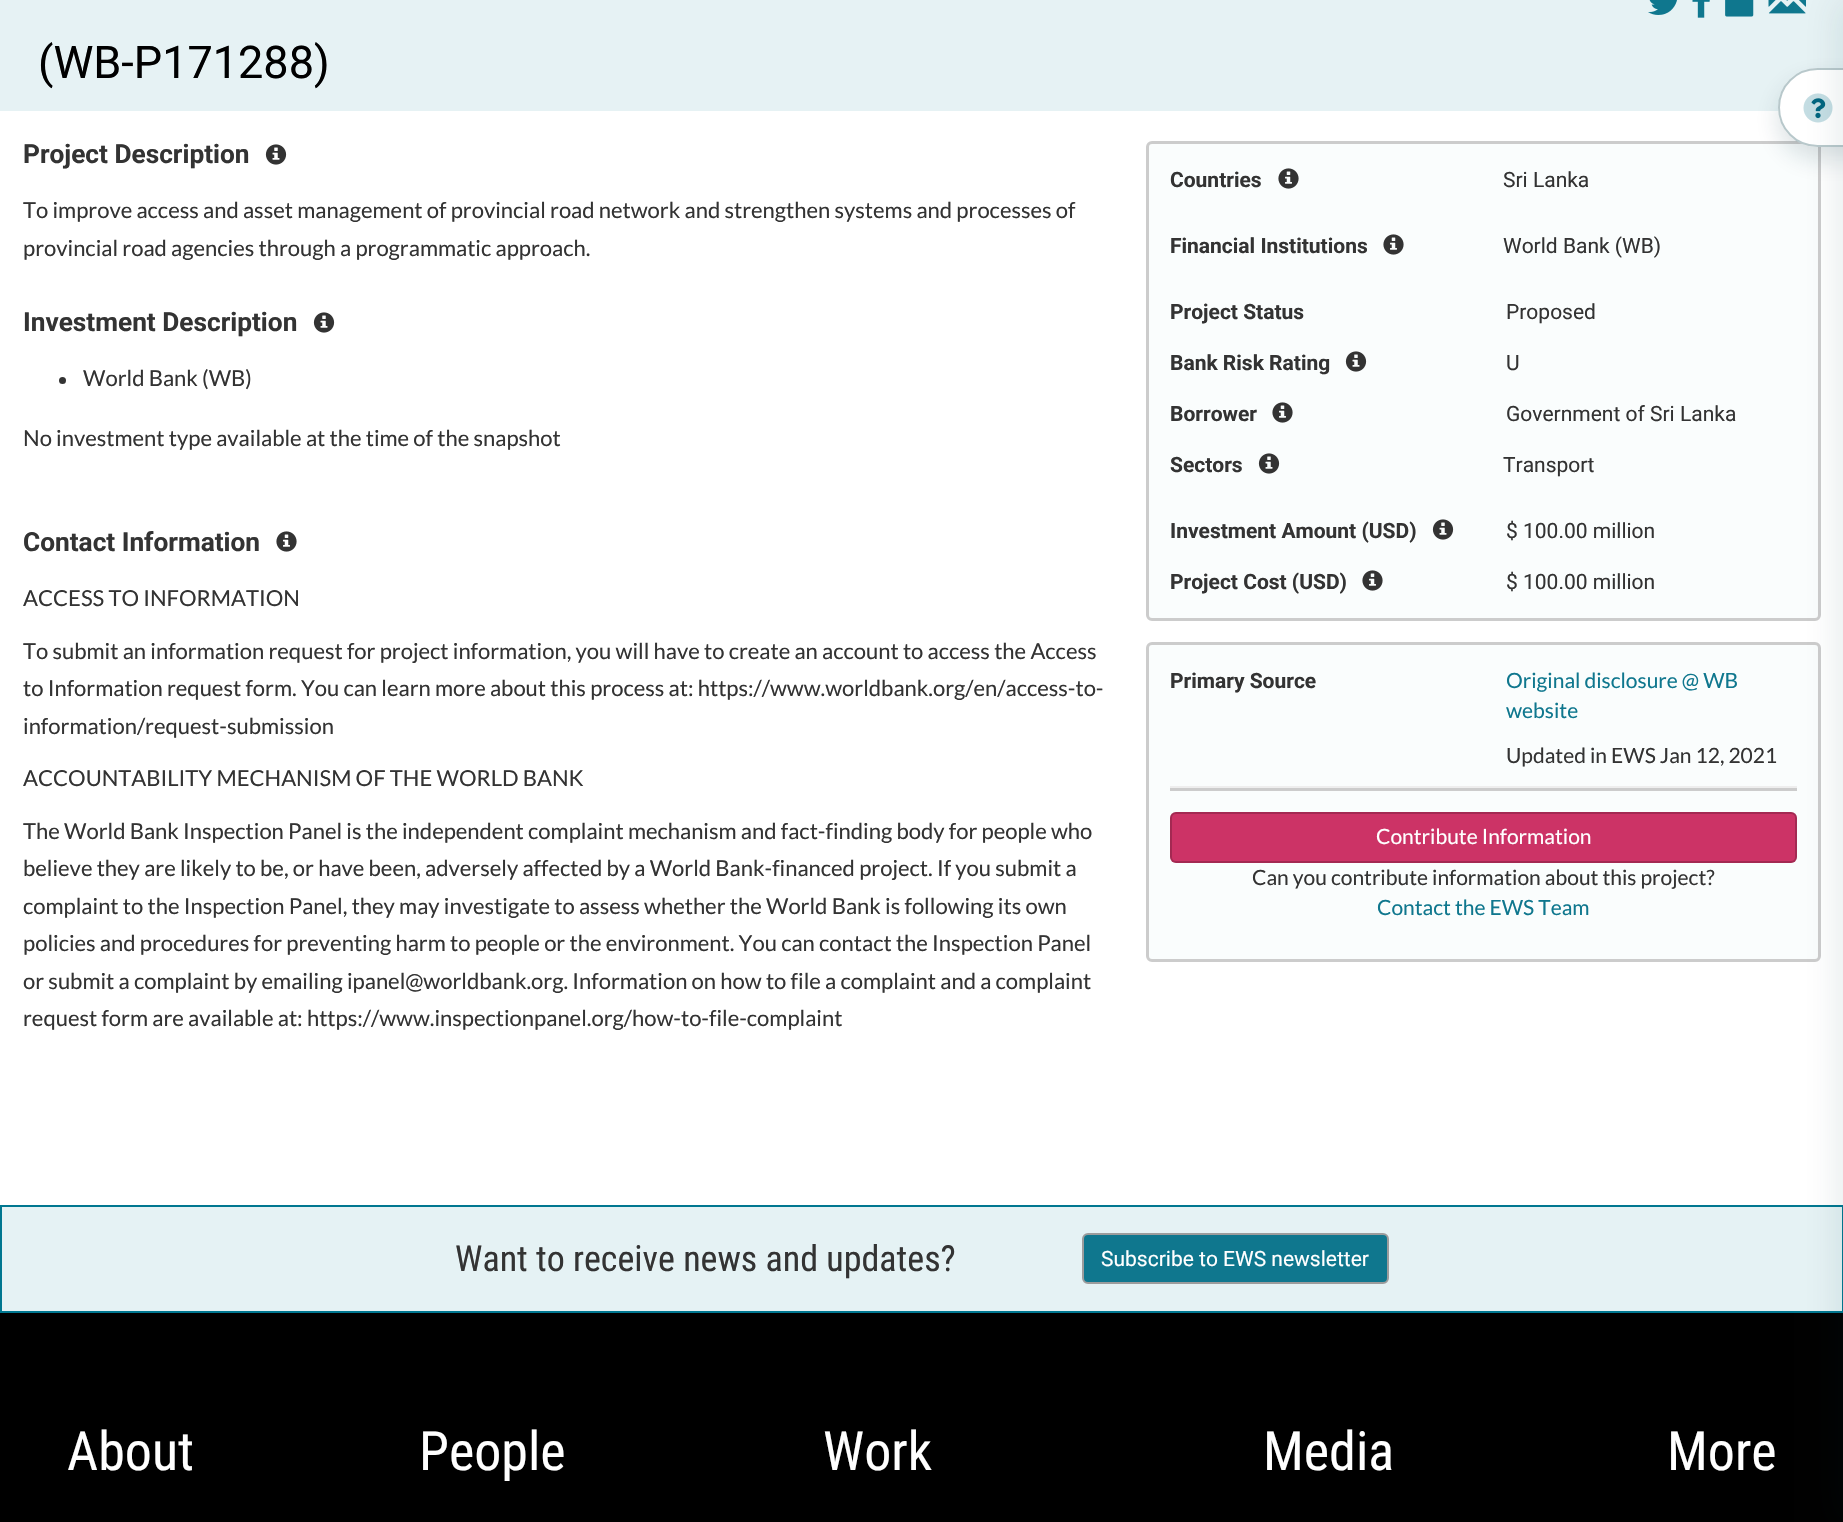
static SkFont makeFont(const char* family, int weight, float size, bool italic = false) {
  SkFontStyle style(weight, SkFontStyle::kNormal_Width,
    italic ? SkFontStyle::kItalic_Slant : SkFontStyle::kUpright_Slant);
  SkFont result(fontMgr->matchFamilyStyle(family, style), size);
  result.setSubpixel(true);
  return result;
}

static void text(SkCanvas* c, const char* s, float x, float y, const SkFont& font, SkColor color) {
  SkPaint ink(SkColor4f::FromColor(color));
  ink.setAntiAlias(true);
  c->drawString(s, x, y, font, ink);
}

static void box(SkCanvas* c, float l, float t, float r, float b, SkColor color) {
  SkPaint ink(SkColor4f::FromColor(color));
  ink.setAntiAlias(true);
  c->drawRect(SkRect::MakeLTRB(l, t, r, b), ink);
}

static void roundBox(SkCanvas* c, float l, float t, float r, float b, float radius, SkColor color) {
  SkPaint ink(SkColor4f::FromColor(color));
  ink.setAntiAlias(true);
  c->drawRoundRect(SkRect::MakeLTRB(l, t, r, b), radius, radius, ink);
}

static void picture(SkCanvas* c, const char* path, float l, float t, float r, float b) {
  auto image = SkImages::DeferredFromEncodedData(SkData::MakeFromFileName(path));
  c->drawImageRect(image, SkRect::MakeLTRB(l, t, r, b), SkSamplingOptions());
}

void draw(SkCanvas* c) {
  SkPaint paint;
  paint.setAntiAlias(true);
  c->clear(0xffffffff);
  box(c, 0, 0, 1843, 111, 0xffe6f2f4);
  picture(c, "img_01.png", 1648, 0, 1677, 15);
  picture(c, "img_02.png", 1692, 0, 1710, 18);
  picture(c, "img_03.png", 1725, 0, 1754, 17);
  picture(c, "img_04.png", 1768, 0, 1806, 14);
  SkFont face1 = makeFont("Roboto", 400, 45);
  text(c, "(WB-P171288)", 38, 78, face1, 0xff000000);
  paint.setColor(0xfffafdfd);
  c->drawRoundRect(SkRect::MakeLTRB(1147.5f, 142.5f, 1819.5f, 619.5f), 4.5f, 4.5f, paint);
  paint.setStyle(SkPaint::kStroke_Style);
  paint.setStrokeWidth(3);
  paint.setColor(0xffcccccc);
  c->drawRoundRect(SkRect::MakeLTRB(1147.5f, 142.5f, 1819.5f, 619.5f), 4.5f, 4.5f, paint);
  paint.setStyle(SkPaint::kFill_Style);
  paint.setColor(0x260e3841);
  paint.setMaskFilter(SkMaskFilter::MakeBlur(kNormal_SkBlurStyle, 12));
  c->drawRoundRect(SkRect::MakeLTRB(1778, 80, 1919, 159), 39.5f, 39.5f, paint);
  paint.setMaskFilter(nullptr);
  paint.setColor(0xffffffff);
  c->drawPath(SkPathBuilder().moveTo(1817.5f, 68).lineTo(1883, 68).lineTo(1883, 147).lineTo(1817.5f, 147).cubicTo(1795.5f, 147, 1778, 129.5f, 1778, 107.5f).cubicTo(1778, 85.5f, 1795.5f, 68, 1817.5f, 68).close().detach(), paint);
  paint.setStyle(SkPaint::kStroke_Style);
  paint.setStrokeWidth(2);
  paint.setColor(0x4d134954);
  c->drawPath(SkPathBuilder().moveTo(1817.5f, 69).lineTo(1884, 69).lineTo(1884, 146).lineTo(1817.5f, 146).cubicTo(1796, 146, 1779, 129, 1779, 107.5f).cubicTo(1779, 86, 1796, 69, 1817.5f, 69).close().detach(), paint);
  picture(c, "img_05.png", 1803, 93, 1833, 123);
  paint.setStyle(SkPaint::kFill_Style);
  paint.setColor(0xfffafdfd);
  c->drawRoundRect(SkRect::MakeLTRB(1147.5f, 643.5f, 1819.5f, 960.5f), 4.5f, 4.5f, paint);
  paint.setStyle(SkPaint::kStroke_Style);
  paint.setStrokeWidth(3);
  paint.setColor(0xffcccccc);
  c->drawRoundRect(SkRect::MakeLTRB(1147.5f, 643.5f, 1819.5f, 960.5f), 4.5f, 4.5f, paint);
  box(c, 1170, 788, 1797, 791, 0xffcccccc);
  box(c, 1170, 786, 1797, 788, 0xffeeeeee);
  roundBox(c, 1170, 812, 1797, 863, 6, 0xffcc3366);
  paint.setStrokeWidth(2);
  paint.setColor(0x33000000);
  c->drawRoundRect(SkRect::MakeLTRB(1171, 813, 1796, 862), 5, 5, paint);
  paint.setStyle(SkPaint::kFill_Style);
  paint.setColor(0xffe5f2f4);
  c->drawRect(SkRect::MakeLTRB(1, 1206, 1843, 1312), paint);
  paint.setStyle(SkPaint::kStroke_Style);
  paint.setColor(0xff007790);
  c->drawRect(SkRect::MakeLTRB(1, 1206, 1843, 1312), paint);
  box(c, 0, 1313, 1843, 1522, 0xff000000);
  paint.setStyle(SkPaint::kFill_Style);
  paint.setColor(0x1a0e3841);
  paint.setMaskFilter(SkMaskFilter::MakeBlur(kNormal_SkBlurStyle, 18));
  c->drawRect(SkRect::MakeLTRB(1838, 0, 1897, 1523), paint);
  paint.setMaskFilter(nullptr);
  SkFont face2 = makeFont("Roboto", 700, 26.25f);
  text(c, "Project Description", 23, 163, face2, 0xff333333);
  picture(c, "img_06.png", 265, 144, 287, 165);
  SkFont face3 = makeFont("Lato", 400, 22);
  text(c, "To improve access and asset management of provincial road network and strengthen systems and processes of", 23, 218, face3, 0xff333333);
  text(c, "provincial road agencies through a programmatic approach.", 23, 256, face3, 0xff333333);
  SkFont face4 = makeFont("Roboto", 700, 21);
  text(c, "Countries", 1170, 187, face4, 0xff333333);
  picture(c, "img_07.png", 1278, 168, 1299, 189);
  SkFont face5 = makeFont("Roboto", 400, 21);
  text(c, "Sri Lanka", 1503, 187, face5, 0xff333333);
  text(c, "Financial Institutions", 1170, 253, face4, 0xff333333);
  picture(c, "img_07.png", 1383, 234, 1404, 255);
  text(c, "World Bank (WB)", 1503, 253, face5, 0xff333333);
  text(c, "Project Status", 1170, 319, face4, 0xff333333);
  text(c, "Proposed", 1506, 319, face5, 0xff333333);
  text(c, "Bank Risk Rating", 1170, 370, face4, 0xff333333);
  picture(c, "img_08.png", 1345, 351, 1367, 372);
  text(c, "U", 1506, 370, face5, 0xff333333);
  text(c, "Borrower", 1170, 421, face4, 0xff333333);
  picture(c, "img_07.png", 1272, 402, 1293, 423);
  text(c, "Government of Sri Lanka", 1506, 421, face5, 0xff333333);
  text(c, "Sectors", 1170, 472, face4, 0xff333333);
  picture(c, "img_08.png", 1258, 453, 1280, 474);
  text(c, "Transport", 1503, 472, face5, 0xff333333);
  text(c, "Investment Amount (USD)", 1170, 538, face4, 0xff333333);
  picture(c, "img_08.png", 1432, 519, 1454, 540);
  text(c, "$ 100.00 million", 1506, 538, face5, 0xff333333);
  text(c, "Project Cost (USD)", 1170, 589, face4, 0xff333333);
  picture(c, "img_07.png", 1362, 570, 1383, 591);
  text(c, "$ 100.00 million", 1506, 589, face5, 0xff333333);
  text(c, "Primary Source", 1170, 688, face4, 0xff333333);
  SkFont face6 = makeFont("Lato", 400, 21);
  text(c, "Original disclosure @ WB", 1506, 688, face6, 0xff0f778e);
  text(c, "website", 1506, 718, face6, 0xff0f778e);
  text(c, "Updated in EWS Jan 12, 2021", 1506, 763, face6, 0xff333333);
  text(c, "Contribute Information", 1376, 844, face6, 0xffffffff);
  text(c, "Can you contribute information about this project?", 1252, 885, face6, 0xff333333);
  text(c, "Contact the EWS Team", 1377, 915, face6, 0xff0f778e);
  text(c, "Investment Description", 23, 331, face2, 0xff333333);
  picture(c, "img_06.png", 313, 312, 335, 333);
  paint.setColor(0xff333333);
  c->drawCircle(62.5f, 380.5f, 3.5f, paint);
  text(c, "World Bank (WB)", 83, 386, face3, 0xff333333);
  text(c, "No investment type available at the time of the snapshot", 23, 446, face3, 0xff333333);
  text(c, "Contact Information", 23, 551, face2, 0xff333333);
  picture(c, "img_09.png", 276, 531, 297, 552);
  text(c, "ACCESS TO INFORMATION", 23, 606, face3, 0xff333333);
  text(c, "To submit an information request for project information, you will have to create an account to access the Access", 23, 659, face3, 0xff333333);
  text(c, "to Information request form. You can learn more about this process at: https://www.worldbank.org/en/access-to-", 23, 696, face3, 0xff333333);
  text(c, "information/request-submission", 23, 734, face3, 0xff333333);
  text(c, "ACCOUNTABILITY MECHANISM OF THE WORLD BANK", 23, 786, face3, 0xff333333);
  text(c, "The World Bank Inspection Panel is the independent complaint mechanism and fact-finding body for people who", 23, 839, face3, 0xff333333);
  text(c, "believe they are likely to be, or have been, adversely affected by a World Bank-financed project. If you submit a", 23, 876, face3, 0xff333333);
  text(c, "complaint to the Inspection Panel, they may investigate to assess whether the World Bank is following its own", 23, 914, face3, 0xff333333);
  text(c, "policies and procedures for preventing harm to people or the environment. You can contact the Inspection Panel", 23, 951, face3, 0xff333333);
  text(c, "or submit a complaint by emailing ipanel@worldbank.org. Information on how to file a complaint and a complaint", 23, 989, face3, 0xff333333);
  text(c, "request form are available at: https://www.inspectionpanel.org/how-to-file-complaint", 23, 1026, face3, 0xff333333);
  SkFont face7 = makeFont("Roboto Condensed", 400, 36);
  text(c, "Want to receive news and updates?", 455, 1271, face7, 0xff333333);
  paint.setColor(0xff0f778e);
  c->drawRoundRect(SkRect::MakeLTRB(1083, 1234, 1388, 1283), 5, 5, paint);
  paint.setStyle(SkPaint::kStroke_Style);
  paint.setColor(0xff9c9c9c);
  c->drawRoundRect(SkRect::MakeLTRB(1083, 1234, 1388, 1283), 5, 5, paint);
  text(c, "Subscribe to EWS newsletter", 1101, 1266, face5, 0xffffffff);
  SkFont face8 = makeFont("Roboto Condensed", 400, 54);
  text(c, "About", 67, 1470, face8, 0xffffffff);
  text(c, "People", 419, 1470, face8, 0xffffffff);
  text(c, "Work", 823, 1470, face8, 0xffffffff);
  text(c, "Media", 1263, 1470, face8, 0xffffffff);
  text(c, "More", 1667, 1470, face8, 0xffffffff);
}
